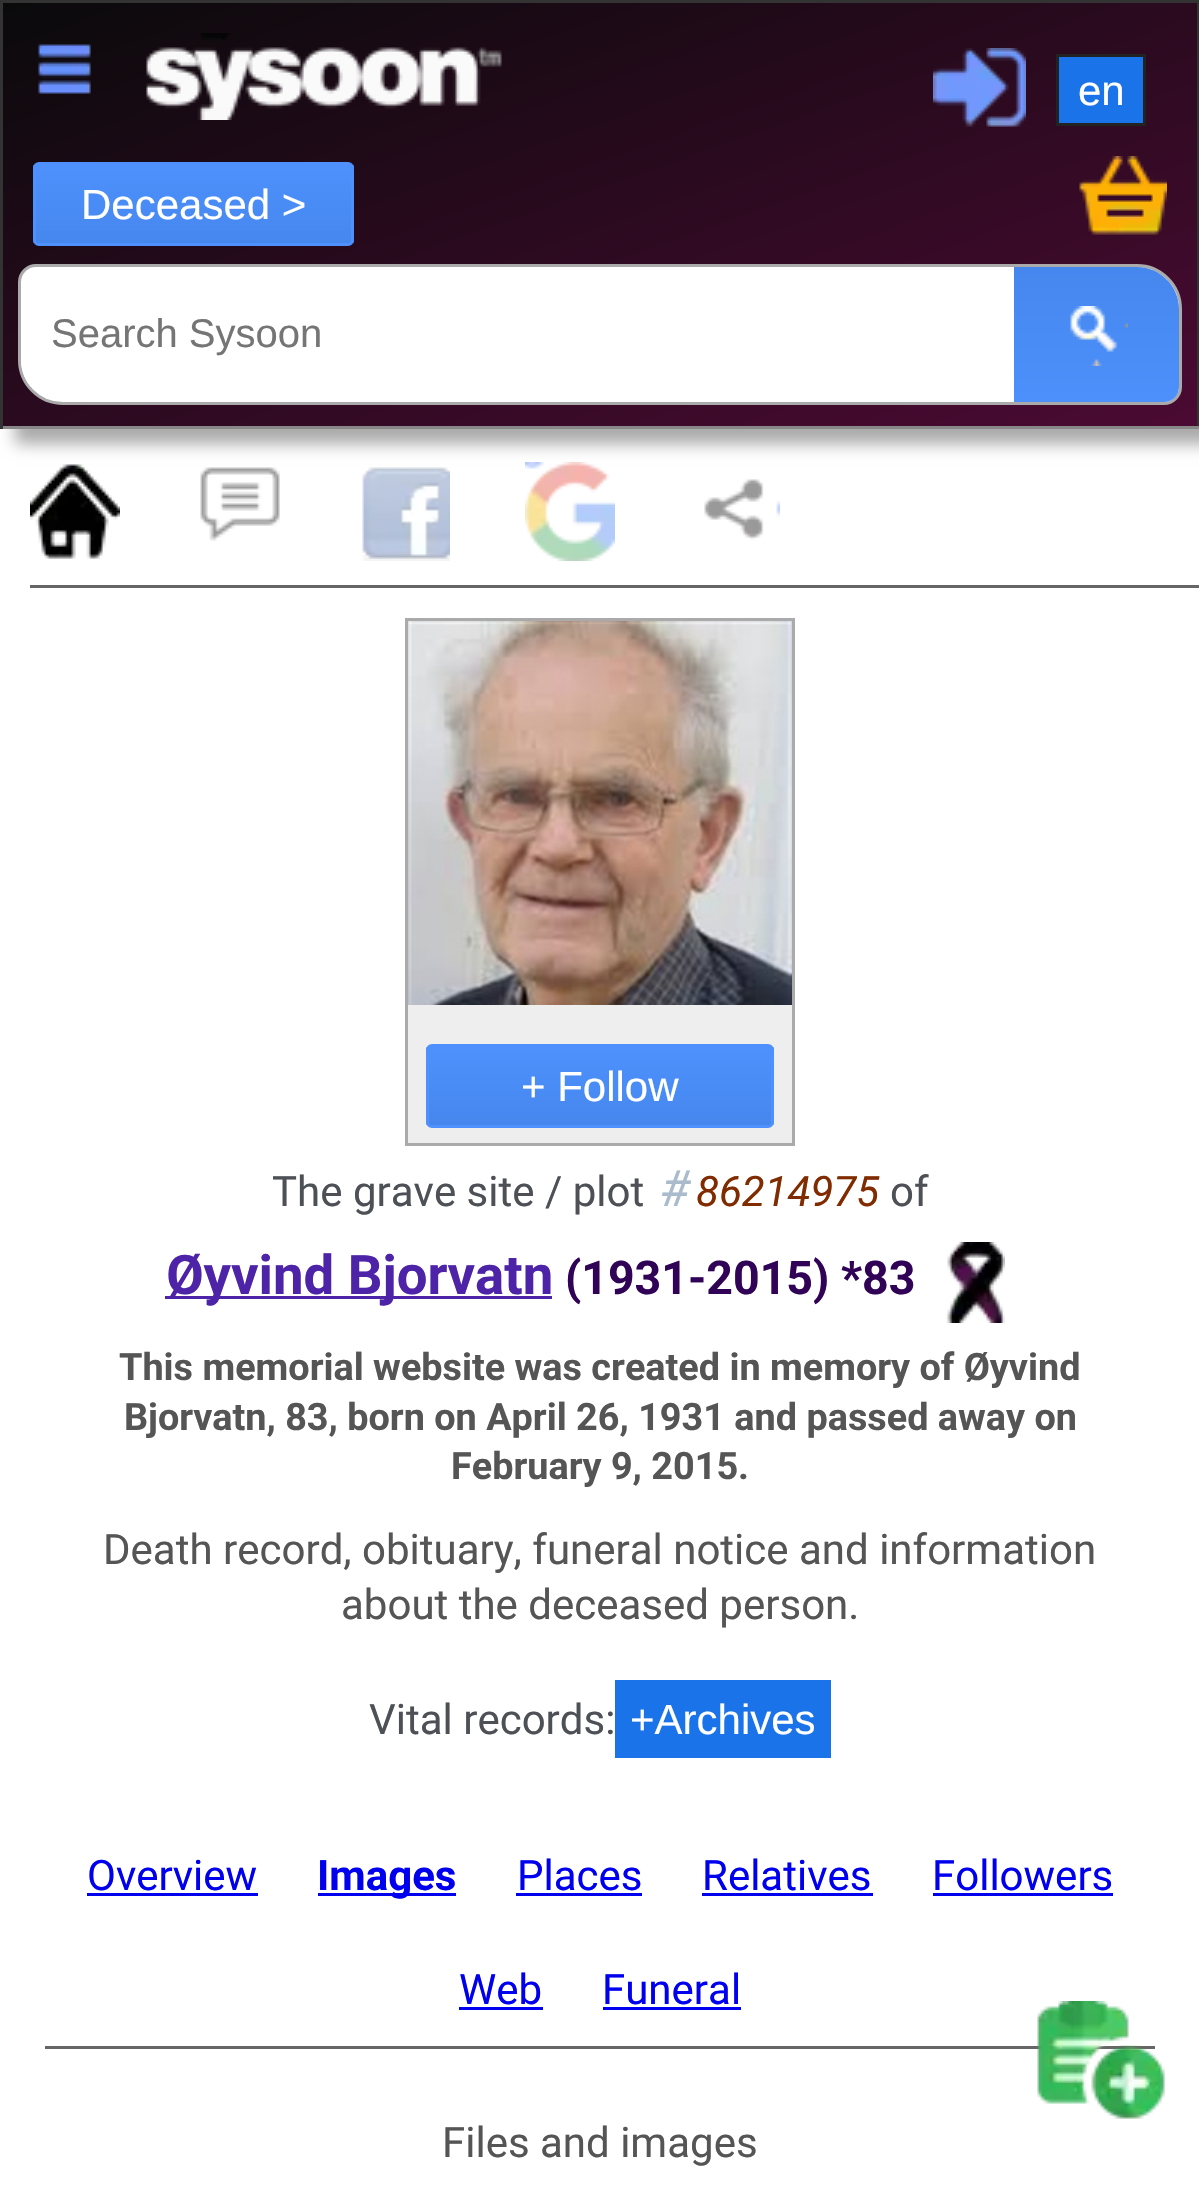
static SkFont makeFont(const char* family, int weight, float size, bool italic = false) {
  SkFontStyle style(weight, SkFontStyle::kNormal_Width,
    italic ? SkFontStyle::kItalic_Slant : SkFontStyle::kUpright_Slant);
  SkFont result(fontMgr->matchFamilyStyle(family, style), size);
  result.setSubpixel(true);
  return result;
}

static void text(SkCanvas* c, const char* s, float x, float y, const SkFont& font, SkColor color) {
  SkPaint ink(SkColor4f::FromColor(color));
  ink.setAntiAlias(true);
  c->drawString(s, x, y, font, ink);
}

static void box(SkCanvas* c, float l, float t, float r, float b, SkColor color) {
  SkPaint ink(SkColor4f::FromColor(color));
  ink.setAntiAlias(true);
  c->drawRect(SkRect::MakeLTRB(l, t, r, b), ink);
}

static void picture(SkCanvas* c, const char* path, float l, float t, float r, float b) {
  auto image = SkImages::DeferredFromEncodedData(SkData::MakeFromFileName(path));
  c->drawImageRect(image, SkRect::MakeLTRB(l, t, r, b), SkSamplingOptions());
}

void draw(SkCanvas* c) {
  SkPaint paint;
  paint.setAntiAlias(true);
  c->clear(0xffffffff);
  picture(c, "img_06.png", 30, 464, 120, 559);
  picture(c, "img_07.png", 200, 467, 280, 541);
  picture(c, "img_08.png", 362, 467, 450, 561);
  picture(c, "img_09.png", 525, 462, 615, 561);
  paint.setColor(0xffaaaaaa);
  paint.setMaskFilter(SkMaskFilter::MakeBlur(kNormal_SkBlurStyle, 7.5f));
  c->drawRect(SkRect::MakeLTRB(15, 15, 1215, 444), paint);
  paint.setMaskFilter(nullptr);
  {
    const SkColor colors[] = {0xff0a0a0b, 0xff4b0a33};
    const float stops[] = {0, 1};
    const SkPoint ends[] = {{467, -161}, {733, 590}};
    paint.setShader(SkGradientShader::MakeLinear(ends, colors, stops, 2, SkTileMode::kClamp));
    paint.setAlpha(255);
  }
  c->drawRect(SkRect::MakeLTRB(3, 3, 1197, 426), paint);
  box(c, 0, 0, 1199, 3, 0xff333333);
  box(c, 1197, 0, 1199, 429, 0xff333333);
  box(c, 0, 426, 1199, 429, 0xff888888);
  box(c, 0, 0, 3, 429, 0xff333333);
  picture(c, "img_01.png", 933, 48, 1026, 127);
  paint.setShader(nullptr);
  paint.setColor(0xff1a73e8);
  c->drawRect(SkRect::MakeLTRB(1057.5f, 55.5f, 1144.5f, 124.5f), paint);
  paint.setStyle(SkPaint::kStroke_Style);
  paint.setStrokeWidth(3);
  paint.setColor(0xff222222);
  c->drawRect(SkRect::MakeLTRB(1057.5f, 55.5f, 1144.5f, 124.5f), paint);
  SkFont face1 = makeFont("Liberation Sans", 400, 42);
  text(c, "en", 1078, 105, face1, 0xffffffff);
  picture(c, "img_02.png", 1079, 156, 1167, 235);
  picture(c, "img_03.png", 38, 44, 91, 94);
  picture(c, "img_04.png", 146, 33, 502, 120);
  c->save();
  c->clipPath(SkPathBuilder().moveTo(39, 162).lineTo(348, 162).cubicTo(351.5f, 162, 354, 164.5f, 354, 168).lineTo(354, 240).cubicTo(354, 243.5f, 351.5f, 246, 348, 246).lineTo(39, 246).cubicTo(35.5f, 246, 33, 243.5f, 33, 240).lineTo(33, 168).cubicTo(33, 164.5f, 35.5f, 162, 39, 162).close().detach(), true);
  paint.setStyle(SkPaint::kFill_Style);
  {
    const SkColor colors[] = {0xff4e91fd, 0xff4687ee};
    const float stops[] = {0, 1};
    const SkPoint ends[] = {{194, 165}, {194, 243}};
    paint.setShader(SkGradientShader::MakeLinear(ends, colors, stops, 2, SkTileMode::kClamp));
    paint.setAlpha(255);
  }
  c->drawRect(SkRect::MakeLTRB(33, 165, 354, 243), paint);
  c->restore();
  paint.setStyle(SkPaint::kStroke_Style);
  paint.setShader(nullptr);
  paint.setColor(0xff4d90fe);
  c->drawRoundRect(SkRect::MakeLTRB(34.5f, 163.5f, 352.5f, 244.5f), 4.5f, 4.5f, paint);
  text(c, "Deceased >", 81, 219, face1, 0xffffffff);
  paint.setStyle(SkPaint::kFill_Style);
  paint.setColor(0xffffffff);
  c->drawPath(SkPathBuilder().moveTo(36, 265.5f).lineTo(1137, 265.5f).cubicTo(1161, 265.5f, 1180.5f, 285, 1180.5f, 309).lineTo(1180.5f, 387).cubicTo(1180.5f, 396, 1173, 403.5f, 1164, 403.5f).lineTo(63, 403.5f).cubicTo(39, 403.5f, 19.5f, 384, 19.5f, 360).lineTo(19.5f, 282).cubicTo(19.5f, 273, 27, 265.5f, 36, 265.5f).close().detach(), paint);
  paint.setStyle(SkPaint::kStroke_Style);
  paint.setColor(0xffaaaaaa);
  c->drawPath(SkPathBuilder().moveTo(36, 265.5f).lineTo(1137, 265.5f).cubicTo(1161, 265.5f, 1180.5f, 285, 1180.5f, 309).lineTo(1180.5f, 387).cubicTo(1180.5f, 396, 1173, 403.5f, 1164, 403.5f).lineTo(63, 403.5f).cubicTo(39, 403.5f, 19.5f, 384, 19.5f, 360).lineTo(19.5f, 282).cubicTo(19.5f, 273, 27, 265.5f, 36, 265.5f).close().detach(), paint);
  c->save();
  c->clipPath(SkPathBuilder().moveTo(36, 267).lineTo(1137, 267).cubicTo(1160, 267, 1179, 286, 1179, 309).lineTo(1179, 387).cubicTo(1179, 395.5f, 1172.5f, 402, 1164, 402).lineTo(63, 402).cubicTo(40, 402, 21, 383, 21, 360).lineTo(21, 282).cubicTo(21, 273.5f, 27.5f, 267, 36, 267).close().detach(), true);
  box(c, 21, 282, 1179, 387, 0xffffffff);
  c->restore();
  SkFont face2 = makeFont("Liberation Sans", 400, 40);
  text(c, "Search Sysoon", 51, 347, face2, 0xff757575);
  paint.setStyle(SkPaint::kFill_Style);
  {
    const SkColor colors[] = {0xff4e91fd, 0xff4687ee};
    const float stops[] = {0, 1};
    const SkPoint ends[] = {{1097, 417}, {1097, 267}};
    paint.setShader(SkGradientShader::MakeLinear(ends, colors, stops, 2, SkTileMode::kClamp));
    paint.setAlpha(255);
  }
  c->drawPath(SkPathBuilder().moveTo(1014, 267).lineTo(1137, 267).cubicTo(1160, 267, 1179, 286, 1179, 309).lineTo(1179, 387).cubicTo(1179, 395.5f, 1172.5f, 402, 1164, 402).lineTo(1014, 402).close().detach(), paint);
  picture(c, "img_05.png", 1070, 306, 1128, 366);
  box(c, 30, 585, 1199, 588, 0xff666666);
  picture(c, "img_10.png", 704, 479, 780, 540);
  box(c, 408, 1005, 792, 1143, 0xffeeeeee);
  paint.setStyle(SkPaint::kStroke_Style);
  paint.setShader(nullptr);
  paint.setColor(0xffaaaaaa);
  c->drawRect(SkRect::MakeLTRB(406.5f, 619.5f, 793.5f, 1144.5f), paint);
  picture(c, "img_11.png", 408, 621, 792, 1005);
  c->save();
  c->clipPath(SkPathBuilder().moveTo(432, 1044).lineTo(768, 1044).cubicTo(771.5f, 1044, 774, 1046.5f, 774, 1050).lineTo(774, 1122).cubicTo(774, 1125.5f, 771.5f, 1128, 768, 1128).lineTo(432, 1128).cubicTo(428.5f, 1128, 426, 1125.5f, 426, 1122).lineTo(426, 1050).cubicTo(426, 1046.5f, 428.5f, 1044, 432, 1044).close().detach(), true);
  paint.setStyle(SkPaint::kFill_Style);
  {
    const SkColor colors[] = {0xff4e91fd, 0xff4687ee};
    const float stops[] = {0, 1};
    const SkPoint ends[] = {{600, 1047}, {600, 1125}};
    paint.setShader(SkGradientShader::MakeLinear(ends, colors, stops, 2, SkTileMode::kClamp));
    paint.setAlpha(255);
  }
  c->drawRect(SkRect::MakeLTRB(426, 1047, 774, 1125), paint);
  c->restore();
  paint.setStyle(SkPaint::kStroke_Style);
  paint.setShader(nullptr);
  paint.setColor(0xff4d90fe);
  c->drawRoundRect(SkRect::MakeLTRB(427.5f, 1045.5f, 772.5f, 1126.5f), 4.5f, 4.5f, paint);
  text(c, "+ Follow", 521, 1101, face1, 0xffffffff);
  SkFont face3 = makeFont("Roboto", 400, 42);
  text(c, "The grave site / plot", 272, 1206, face3, 0xff4d5156);
  SkFont face4 = makeFont("Roboto", 400, 50, true);
  text(c, "#", 660, 1206, face4, 0xffaabbcc);
  SkFont face5 = makeFont("Roboto", 400, 42, true);
  text(c, "86214975", 696, 1206, face5, 0xff802b00);
  text(c, "of", 890, 1206, face3, 0xff4d5156);
  box(c, 165, 1296, 552, 1299, 0xff4d23a8);
  SkFont face6 = makeFont("Roboto", 700, 54.5f);
  text(c, "Øyvind Bjorvatn", 166, 1294, face6, 0xff4d23a8);
  SkFont face7 = makeFont("Roboto", 700, 46.5f);
  text(c, "(1931-2015) *83", 565, 1294, face7, 0xff300357);
  picture(c, "img_12.png", 945, 1242, 1005, 1323);
  SkFont face8 = makeFont("Roboto", 700, 37.8f);
  text(c, "This memorial website was created in memory of Øyvind", 119, 1380, face8, 0xff555555);
  text(c, "Bjorvatn, 83, born on April 26, 1931 and passed away on", 124, 1430, face8, 0xff555555);
  text(c, "February 9, 2015.", 451, 1479, face8, 0xff555555);
  text(c, "Death record, obituary, funeral notice and information", 103, 1564, face3, 0xff555555);
  text(c, "about the deceased person.", 341, 1619, face3, 0xff555555);
  text(c, "Vital records:", 369, 1734, face3, 0xff4d5156);
  box(c, 615, 1680, 831, 1758, 0xff1a73e8);
  text(c, "+Archives", 630, 1734, face1, 0xffffffff);
  box(c, 45, 2046, 1155, 2049, 0xff666666);
  text(c, "Overview", 87, 1890, face3, 0xff0000ee);
  box(c, 87, 1893, 258, 1896, 0xff0000ee);
  box(c, 318, 1893, 456, 1896, 0xff0000ee);
  SkFont face9 = makeFont("Roboto", 700, 42);
  text(c, "Images", 317, 1890, face9, 0xff0000ee);
  text(c, "Places", 517, 1890, face3, 0xff0000ee);
  box(c, 516, 1893, 642, 1896, 0xff0000ee);
  text(c, "Relatives", 702, 1890, face3, 0xff0000ee);
  box(c, 702, 1893, 873, 1896, 0xff0000ee);
  text(c, "Followers", 932, 1890, face3, 0xff0000ee);
  box(c, 933, 1893, 1113, 1896, 0xff0000ee);
  text(c, "Web", 459, 2004, face3, 0xff0000ee);
  box(c, 459, 2007, 543, 2010, 0xff0000ee);
  text(c, "Funeral", 602, 2004, face3, 0xff0000ee);
  box(c, 603, 2007, 741, 2010, 0xff0000ee);
  text(c, "Files and images", 442, 2157, face3, 0xff555555);
  picture(c, "img_13.png", 1037, 2001, 1165, 2119);
}
